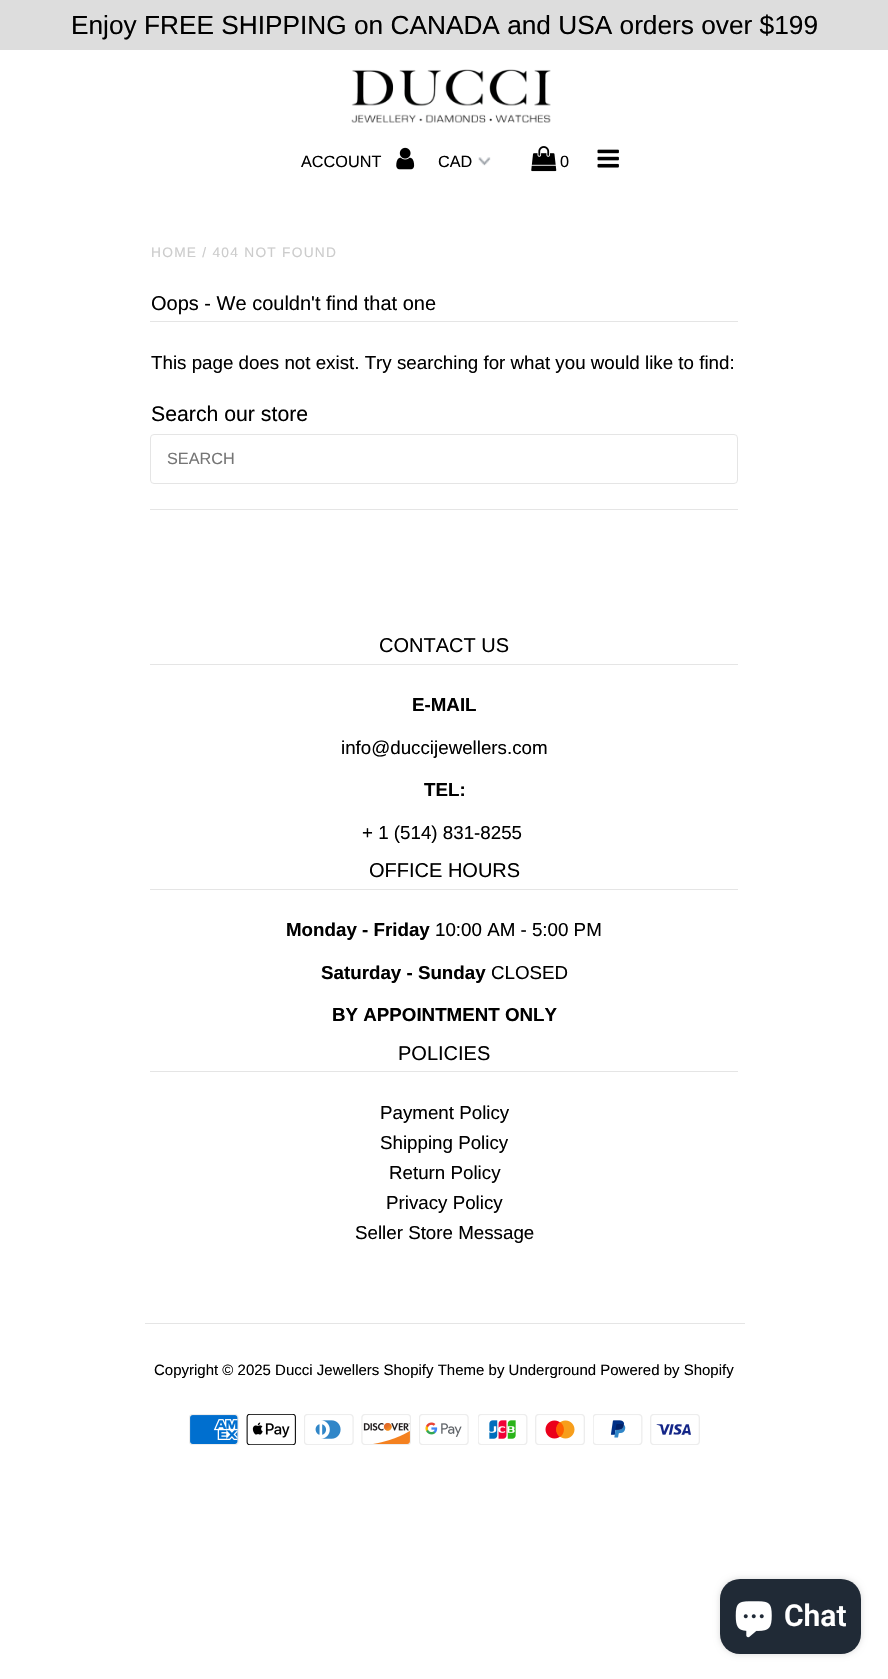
static SkFont makeFont(const char* family, int weight, float size, bool italic = false) {
  SkFontStyle style(weight, SkFontStyle::kNormal_Width,
    italic ? SkFontStyle::kItalic_Slant : SkFontStyle::kUpright_Slant);
  SkFont result(fontMgr->matchFamilyStyle(family, style), size);
  result.setSubpixel(true);
  return result;
}

static void text(SkCanvas* c, const char* s, float x, float y, const SkFont& font, SkColor color) {
  SkPaint ink(SkColor4f::FromColor(color));
  ink.setAntiAlias(true);
  c->drawString(s, x, y, font, ink);
}

static void spacedText(SkCanvas* c, const char* s, float x, float y, const SkFont& font, const SkPaint& ink, float letter, float word) {
  std::vector<SkGlyphID> glyphs(font.countText(s, strlen(s), SkTextEncoding::kUTF8));
  std::vector<float> xs(glyphs.size());
  font.textToGlyphs(s, strlen(s), SkTextEncoding::kUTF8, glyphs);
  font.getXPos(glyphs, xs, x);
  float extra = 0;
  for (size_t i = 0; i < glyphs.size(); i++) {
    xs[i] += extra;
    extra += letter + word * (glyphs[i] == font.unicharToGlyph(' '));
  }
  c->drawTextBlob(SkTextBlob::MakeFromPosHGlyphs(glyphs, xs, y, font), 0, 0, ink);
}

static void box(SkCanvas* c, float l, float t, float r, float b, SkColor color) {
  SkPaint ink(SkColor4f::FromColor(color));
  ink.setAntiAlias(true);
  c->drawRect(SkRect::MakeLTRB(l, t, r, b), ink);
}

static void roundBox(SkCanvas* c, float l, float t, float r, float b, float radius, SkColor color) {
  SkPaint ink(SkColor4f::FromColor(color));
  ink.setAntiAlias(true);
  c->drawRoundRect(SkRect::MakeLTRB(l, t, r, b), radius, radius, ink);
}

static void picture(SkCanvas* c, const char* path, float l, float t, float r, float b) {
  auto image = SkImages::DeferredFromEncodedData(SkData::MakeFromFileName(path));
  c->drawImageRect(image, SkRect::MakeLTRB(l, t, r, b), SkSamplingOptions());
}

void draw(SkCanvas* c) {
  SkPaint paint;
  paint.setAntiAlias(true);
  c->clear(0xffffffff);
  box(c, 0, 0, 888, 50, 0xffdddddd);
  SkFont face1 = makeFont("Liberation Sans", 400, 26.25f);
  text(c, "Enjoy FREE SHIPPING on CANADA and USA orders over $199", 71, 34, face1, 0xff000000);
  picture(c, "img_01.png", 351, 69, 551, 123);
  SkFont face2 = makeFont("Liberation Sans", 400, 16.25f);
  text(c, "ACCOUNT", 301, 167, face2, 0xff000000);
  picture(c, "img_02.png", 396, 147, 415, 170);
  picture(c, "img_03.png", 478, 157, 491, 166);
  text(c, "CAD", 438, 167, face2, 0xff000000);
  picture(c, "img_04.png", 531, 146, 557, 172);
  text(c, "0", 560, 167, face2, 0xff000000);
  picture(c, "img_05.png", 597, 149, 619, 168);
  SkFont face3 = makeFont("Liberation Sans", 400, 13.75f);
  paint.setColor(0xffcccccc);
  spacedText(c, "HOME / 404 NOT FOUND", 151, 257, face3, paint, 1.25f, 0);
  box(c, 150, 321, 738, 322, 0xffe5e5e5);
  SkFont face4 = makeFont("Liberation Sans", 400, 20);
  text(c, "Oops - We couldn't find that one", 151, 310, face4, 0xff000000);
  SkFont face5 = makeFont("Liberation Sans", 400, 18.75f);
  text(c, "This page does not exist. Try searching for what you would like to find:", 151, 369, face5, 0xff000000);
  box(c, 150, 509, 738, 510, 0xffe5e5e5);
  SkFont face6 = makeFont("Liberation Sans", 400, 21.25f);
  text(c, "Search our store", 151, 421, face6, 0xff000000);
  paint.setStyle(SkPaint::kStroke_Style);
  paint.setStrokeWidth(1);
  paint.setColor(0xffe5e5e5);
  c->drawRoundRect(SkRect::MakeLTRB(150.5f, 434.5f, 737.5f, 483.5f), 3.5f, 3.5f, paint);
  text(c, "SEARCH", 167, 464, face2, 0xff757575);
  box(c, 150, 664, 738, 665, 0xffe5e5e5);
  text(c, "CONTACT US", 379, 652, face4, 0xff000000);
  SkFont face7 = makeFont("Liberation Sans", 700, 18.75f);
  text(c, "E-MAIL", 412, 711, face7, 0xff000000);
  text(c, "info@duccijewellers.com", 341, 754, face5, 0xff000000);
  text(c, "TEL:", 424, 796, face7, 0xff000000);
  text(c, "+ 1 (514) 831-8255", 362, 839, face5, 0xff000000);
  box(c, 150, 889, 738, 890, 0xffe5e5e5);
  text(c, "OFFICE HOURS", 369, 877, face4, 0xff000000);
  text(c, "Monday - Friday", 286, 936, face7, 0xff000000);
  text(c, "10:00 AM - 5:00 PM", 435, 936, face5, 0xff000000);
  text(c, "Saturday - Sunday", 321, 979, face7, 0xff000000);
  text(c, "CLOSED", 491, 979, face5, 0xff000000);
  text(c, "BY APPOINTMENT ONLY", 332, 1021, face7, 0xff000000);
  box(c, 150, 1071, 738, 1072, 0xffe5e5e5);
  text(c, "POLICIES", 398, 1060, face4, 0xff000000);
  text(c, "Payment Policy", 380, 1119, face5, 0xff000000);
  text(c, "Shipping Policy", 380, 1149, face5, 0xff000000);
  text(c, "Return Policy", 389, 1179, face5, 0xff000000);
  text(c, "Privacy Policy", 386, 1209, face5, 0xff000000);
  text(c, "Seller Store Message", 355, 1239, face5, 0xff000000);
  box(c, 145, 1323, 745, 1324, 0xffe5e5e5);
  SkFont face8 = makeFont("Liberation Sans", 400, 15);
  text(c, "Copyright © 2025 Ducci Jewellers Shopify Theme by Underground Powered by Shopify", 154, 1375, face8, 0xff000000);
  picture(c, "img_06.png", 189, 1414, 239, 1445);
  picture(c, "img_07.png", 246, 1414, 296, 1445);
  picture(c, "img_08.png", 304, 1414, 354, 1445);
  picture(c, "img_09.png", 361, 1414, 411, 1445);
  picture(c, "img_10.png", 419, 1414, 469, 1445);
  picture(c, "img_11.png", 478, 1414, 528, 1445);
  picture(c, "img_12.png", 535, 1414, 585, 1445);
  picture(c, "img_13.png", 593, 1414, 643, 1445);
  picture(c, "img_14.png", 650, 1414, 700, 1445);
  paint.setStyle(SkPaint::kFill_Style);
  paint.setColor(0x26000000);
  paint.setMaskFilter(SkMaskFilter::MakeBlur(kNormal_SkBlurStyle, 3));
  c->drawRoundRect(SkRect::MakeLTRB(720, 1579, 861, 1654), 20, 20, paint);
  paint.setMaskFilter(nullptr);
  roundBox(c, 720, 1579, 861, 1654, 20, 0xff202a36);
  picture(c, "img_15.png", 735, 1601, 772, 1638);
  SkFont face9 = makeFont("Roboto", 600, 30);
  text(c, "Chat", 784, 1626, face9, 0xffffffff);
}
